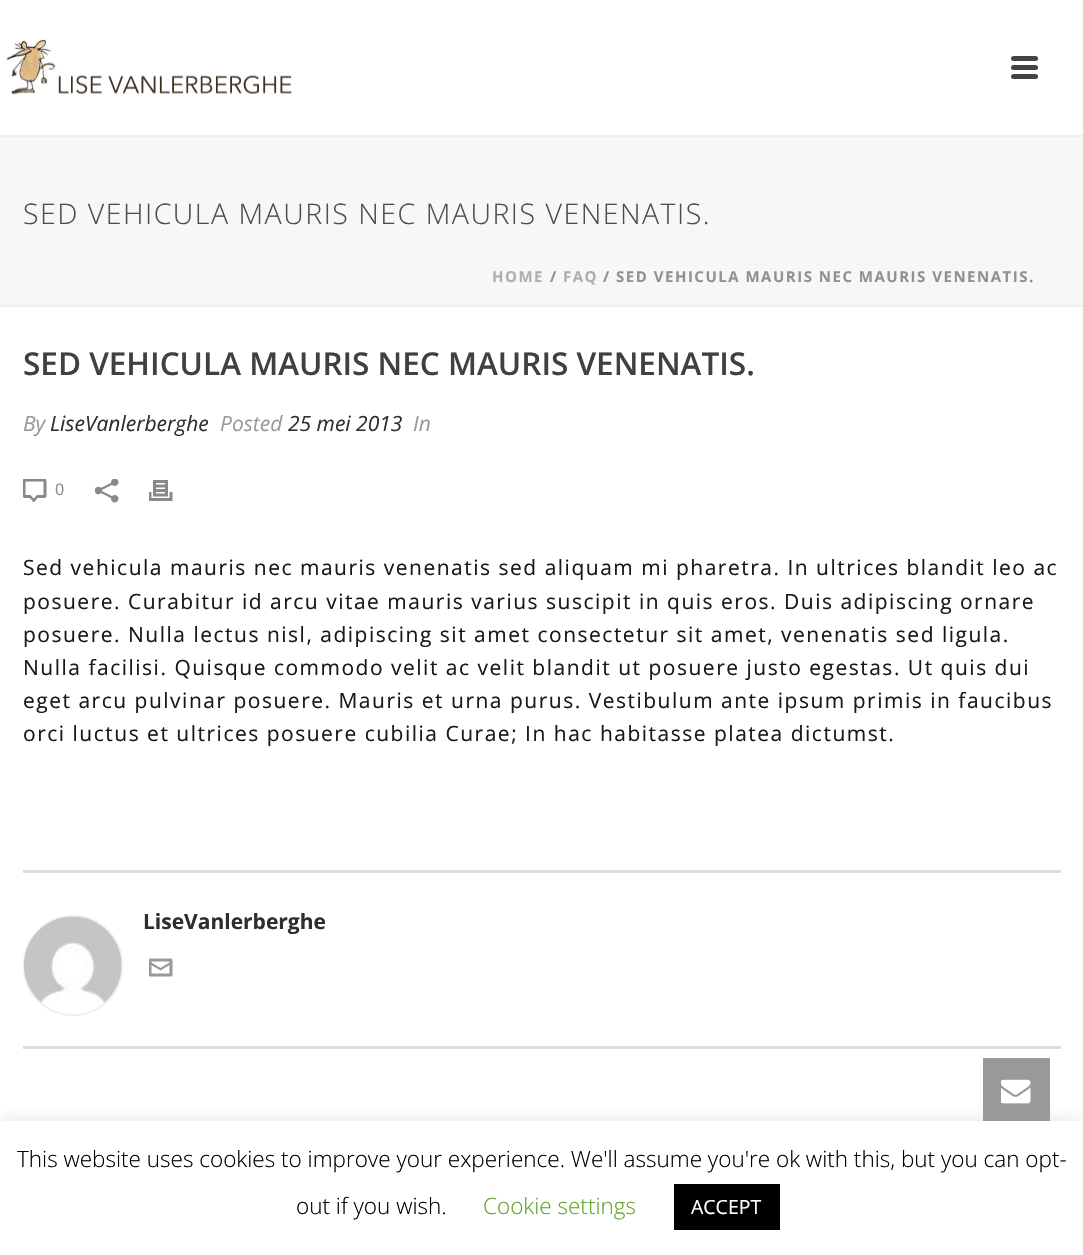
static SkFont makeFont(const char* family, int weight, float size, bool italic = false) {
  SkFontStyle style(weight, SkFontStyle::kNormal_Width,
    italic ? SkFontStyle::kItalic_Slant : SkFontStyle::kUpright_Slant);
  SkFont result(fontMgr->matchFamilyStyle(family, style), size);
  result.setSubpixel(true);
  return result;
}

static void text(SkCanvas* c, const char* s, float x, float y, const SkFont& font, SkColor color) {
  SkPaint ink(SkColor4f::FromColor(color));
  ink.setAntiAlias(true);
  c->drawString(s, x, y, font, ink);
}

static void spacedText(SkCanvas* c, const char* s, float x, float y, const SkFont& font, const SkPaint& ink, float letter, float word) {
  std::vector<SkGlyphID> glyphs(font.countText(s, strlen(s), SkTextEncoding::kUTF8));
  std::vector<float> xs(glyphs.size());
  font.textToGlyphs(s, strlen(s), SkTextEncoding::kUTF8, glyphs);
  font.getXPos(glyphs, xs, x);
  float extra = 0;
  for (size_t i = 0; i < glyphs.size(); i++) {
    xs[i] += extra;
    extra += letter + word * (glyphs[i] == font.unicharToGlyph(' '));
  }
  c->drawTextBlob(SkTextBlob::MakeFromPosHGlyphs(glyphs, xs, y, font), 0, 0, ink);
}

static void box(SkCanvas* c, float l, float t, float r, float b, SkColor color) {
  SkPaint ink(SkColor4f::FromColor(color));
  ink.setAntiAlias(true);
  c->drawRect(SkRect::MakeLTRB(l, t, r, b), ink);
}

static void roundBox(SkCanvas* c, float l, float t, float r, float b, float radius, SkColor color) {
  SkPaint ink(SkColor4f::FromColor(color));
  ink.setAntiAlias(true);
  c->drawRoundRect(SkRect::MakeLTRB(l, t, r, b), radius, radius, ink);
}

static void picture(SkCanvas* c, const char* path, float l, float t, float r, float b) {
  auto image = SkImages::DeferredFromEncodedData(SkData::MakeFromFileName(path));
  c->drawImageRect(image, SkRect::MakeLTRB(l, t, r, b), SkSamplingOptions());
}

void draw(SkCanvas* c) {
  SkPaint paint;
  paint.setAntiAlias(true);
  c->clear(0xffffffff);
  box(c, 0, 137, 1083, 305, 0xfff7f7f7);
  box(c, 0, 305, 1083, 307, 0xffededed);
  box(c, 0, 135, 1083, 137, 0xffededed);
  picture(c, "img_01.png", 6, 39, 292, 95);
  roundBox(c, 1011, 56, 1038, 61, 2.5f, 0xff444444);
  roundBox(c, 1011, 65, 1038, 70, 2.5f, 0xff444444);
  roundBox(c, 1011, 74, 1038, 79, 2.5f, 0xff444444);
  SkFont face1 = makeFont("Open Sans", 300, 28.5f);
  paint.setColor(0xff4d4d4d);
  spacedText(c, "SED VEHICULA MAURIS NEC MAURIS VENENATIS.", 23, 224, face1, paint, 1.5f, 0);
  SkFont face2 = makeFont("Open Sans", 700, 15);
  paint.setColor(0xffafafaf);
  spacedText(c, "HOME", 492, 282, face2, paint, 1.5f, 0);
  paint.setColor(0xff919191);
  spacedText(c, "/", 550, 282, face2, paint, 1.5f, 0);
  paint.setColor(0xffafafaf);
  spacedText(c, "FAQ", 563, 282, face2, paint, 1.5f, 0);
  paint.setColor(0xff919191);
  spacedText(c, "/ SED VEHICULA MAURIS NEC MAURIS VENENATIS.", 603, 282, face2, paint, 1.5f, 0);
  SkFont face3 = makeFont("Open Sans", 600, 31.5f);
  text(c, "SED VEHICULA MAURIS NEC MAURIS VENENATIS.", 23, 375, face3, 0xff404040);
  SkFont face4 = makeFont("Open Sans", 400, 21, true);
  text(c, "By", 23, 431, face4, 0xff999999);
  text(c, "LiseVanlerberghe", 50, 431, face4, 0xff2e2e2e);
  text(c, "Posted", 220, 431, face4, 0xff999999);
  text(c, "25 mei 2013", 288, 431, face4, 0xff2e2e2e);
  text(c, "In", 413, 431, face4, 0xff999999);
  picture(c, "img_02.png", 23, 479, 47, 503);
  SkFont face5 = makeFont("Open Sans", 400, 16);
  text(c, "0", 55, 495, face5, 0xff898989);
  picture(c, "img_03.png", 95, 479, 119, 503);
  picture(c, "img_04.png", 149, 480, 173, 501);
  SkFont face6 = makeFont("Open Sans", 400, 21);
  paint.setColor(0xff191919);
  spacedText(c, "Sed vehicula mauris nec mauris venenatis sed aliquam mi pharetra. In ultrices blandit leo ac", 23, 575, face6, paint, 1.5f, 0);
  spacedText(c, "posuere. Curabitur id arcu vitae mauris varius suscipit in quis eros. Duis adipiscing ornare", 23, 609, face6, paint, 1.5f, 0);
  spacedText(c, "posuere. Nulla lectus nisl, adipiscing sit amet consectetur sit amet, venenatis sed ligula.", 23, 642, face6, paint, 1.5f, 0);
  spacedText(c, "Nulla facilisi. Quisque commodo velit ac velit blandit ut posuere justo egestas. Ut quis dui", 23, 675, face6, paint, 1.5f, 0);
  spacedText(c, "eget arcu pulvinar posuere. Mauris et urna purus. Vestibulum ante ipsum primis in faucibus", 23, 708, face6, paint, 1.5f, 0);
  spacedText(c, "orci luctus et ultrices posuere cubilia Curae; In hac habitasse platea dictumst.", 23, 741, face6, paint, 1.5f, 0);
  box(c, 23, 870, 1061, 873, 0xffdddddd);
  box(c, 23, 1046, 1061, 1049, 0xffdddddd);
  paint.setStyle(SkPaint::kStroke_Style);
  paint.setStrokeWidth(2);
  paint.setColor(0xffeeeeee);
  c->drawRoundRect(SkRect::MakeLTRB(24, 916, 122, 1015), 49, 49, paint);
  picture(c, "img_05.png", 24, 916, 122, 1014);
  SkFont face7 = makeFont("Open Sans", 700, 21);
  text(c, "LiseVanlerberghe", 143, 929, face7, 0xff2e2e2e);
  picture(c, "img_06.png", 149, 958, 173, 977);
  box(c, 983, 1058, 1050, 1121, 0xff999999);
  picture(c, "img_07.png", 1001, 1079, 1031, 1104);
  paint.setStyle(SkPaint::kFill_Style);
  paint.setColor(0x4dacabab);
  paint.setMaskFilter(SkMaskFilter::MakeBlur(kNormal_SkBlurStyle, 7.5f));
  c->drawRect(SkRect::MakeLTRB(0, 1119, 1083, 1254), paint);
  paint.setMaskFilter(nullptr);
  box(c, 0, 1121, 1083, 1255, 0xffffffff);
  SkFont face8 = makeFont("Open Sans", 300, 22.5f);
  text(c, "This website uses cookies to improve your experience. We'll assume you're ok with this, but you can opt-", 17, 1167, face8, 0xff000000);
  text(c, "out if you wish.", 296, 1214, face8, 0xff000000);
  text(c, "Cookie settings", 483, 1214, face8, 0xff62a329);
  box(c, 674, 1184, 780, 1230, 0xff000000);
  SkFont face9 = makeFont("Open Sans", 400, 19.5f);
  text(c, "ACCEPT", 691, 1214, face9, 0xffffffff);
}
